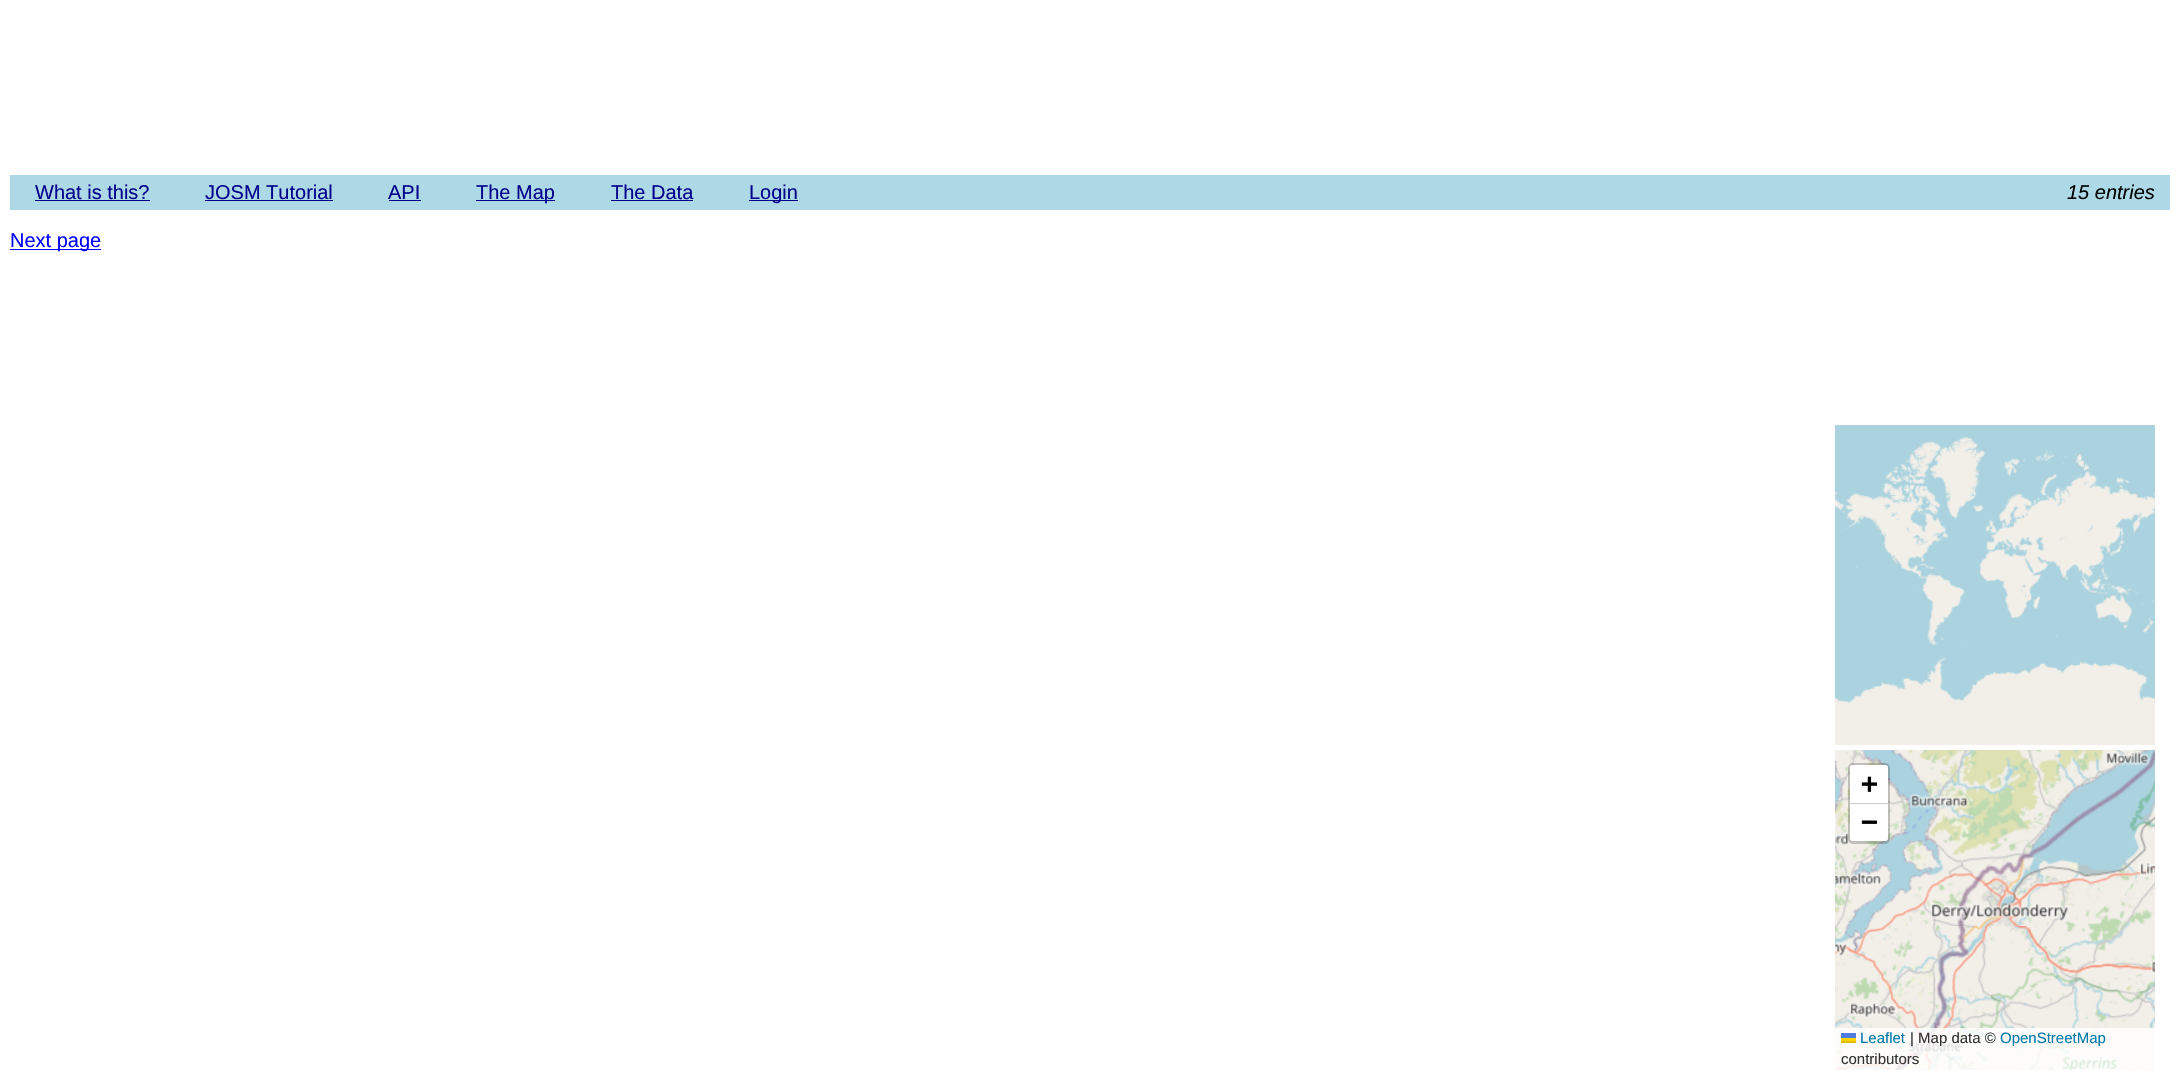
static SkFont makeFont(const char* family, int weight, float size, bool italic = false) {
  SkFontStyle style(weight, SkFontStyle::kNormal_Width,
    italic ? SkFontStyle::kItalic_Slant : SkFontStyle::kUpright_Slant);
  SkFont result(fontMgr->matchFamilyStyle(family, style), size);
  result.setSubpixel(true);
  return result;
}

static void text(SkCanvas* c, const char* s, float x, float y, const SkFont& font, SkColor color) {
  SkPaint ink(SkColor4f::FromColor(color));
  ink.setAntiAlias(true);
  c->drawString(s, x, y, font, ink);
}

static void box(SkCanvas* c, float l, float t, float r, float b, SkColor color) {
  SkPaint ink(SkColor4f::FromColor(color));
  ink.setAntiAlias(true);
  c->drawRect(SkRect::MakeLTRB(l, t, r, b), ink);
}

static void picture(SkCanvas* c, const char* path, float l, float t, float r, float b) {
  auto image = SkImages::DeferredFromEncodedData(SkData::MakeFromFileName(path));
  c->drawImageRect(image, SkRect::MakeLTRB(l, t, r, b), SkSamplingOptions());
}

void draw(SkCanvas* c) {
  SkPaint paint;
  paint.setAntiAlias(true);
  c->clear(0xffffffff);
  box(c, 10, 175, 2170, 210, 0xffadd8e6);
  SkFont face1 = makeFont("Liberation Sans", 400, 20);
  text(c, "What is this?", 35, 199, face1, 0xff00008b);
  box(c, 35, 200, 150, 201, 0xff00008b);
  text(c, "JOSM Tutorial", 205, 199, face1, 0xff00008b);
  box(c, 205, 200, 333, 201, 0xff00008b);
  text(c, "API", 388, 199, face1, 0xff00008b);
  box(c, 389, 200, 421, 201, 0xff00008b);
  box(c, 476, 200, 555, 201, 0xff00008b);
  text(c, "The Map", 476, 199, face1, 0xff00008b);
  text(c, "The Data", 611, 199, face1, 0xff00008b);
  box(c, 611, 200, 693, 201, 0xff00008b);
  box(c, 749, 200, 798, 201, 0xff00008b);
  text(c, "Login", 749, 199, face1, 0xff00008b);
  SkFont face2 = makeFont("Liberation Sans", 400, 20, true);
  text(c, "15 entries", 2067, 199, face2, 0xff000000);
  box(c, 10, 249, 101, 250, 0xff0000ff);
  text(c, "Next page", 10, 247, face1, 0xff0000ff);
  picture(c, "img_01.png", 1835, 425, 2155, 745);
  picture(c, "img_02.png", 1835, 750, 2131, 926);
  picture(c, "img_03.png", 2131, 750, 2155, 926);
  picture(c, "img_04.png", 1835, 926, 2131, 1070);
  picture(c, "img_05.png", 2131, 926, 2155, 1070);
  paint.setStyle(SkPaint::kStroke_Style);
  paint.setStrokeWidth(3);
  paint.setColor(0x33000000);
  c->drawRoundRect(SkRect::MakeLTRB(1849.5f, 764.5f, 1888.5f, 842.5f), 3.5f, 3.5f, paint);
  paint.setStyle(SkPaint::kFill_Style);
  paint.setColor(0xffffffff);
  c->drawPath(SkPathBuilder().moveTo(1852.5f, 765).lineTo(1885.5f, 765).cubicTo(1887, 765, 1888, 766, 1888, 767.5f).lineTo(1888, 804).lineTo(1850, 804).lineTo(1850, 767.5f).cubicTo(1850, 766, 1851, 765, 1852.5f, 765).close().detach(), paint);
  box(c, 1850, 803, 1888, 804, 0xffcccccc);
  SkFont face3 = makeFont("DejaVu Sans Mono", 700, 28);
  text(c, "+", 1861, 793, face3, 0xff000000);
  c->drawPath(SkPathBuilder().moveTo(1850, 804).lineTo(1888, 804).lineTo(1888, 838.5f).cubicTo(1888, 840, 1887, 841, 1885.5f, 841).lineTo(1852.5f, 841).cubicTo(1851, 841, 1850, 840, 1850, 838.5f).close().detach(), paint);
  text(c, "−", 1861, 831, face3, 0xff000000);
  box(c, 1835, 1028, 2155, 1070, 0xccffffff);
  SkFont face4 = makeFont("Liberation Sans", 400, 15);
  text(c, "Leaflet", 1860, 1043, face4, 0xff0078a8);
  box(c, 1841, 1033, 1856, 1038, 0xff4c7be1);
  box(c, 1841, 1038, 1856, 1041, 0xffffd500);
  box(c, 1841, 1041, 1856, 1043, 0xffe0bc00);
  text(c, "| Map data ©", 1910, 1043, face4, 0xff333333);
  text(c, "OpenStreetMap", 2000, 1043, face4, 0xff0078a8);
  text(c, "contributors", 1841, 1064, face4, 0xff333333);
}
